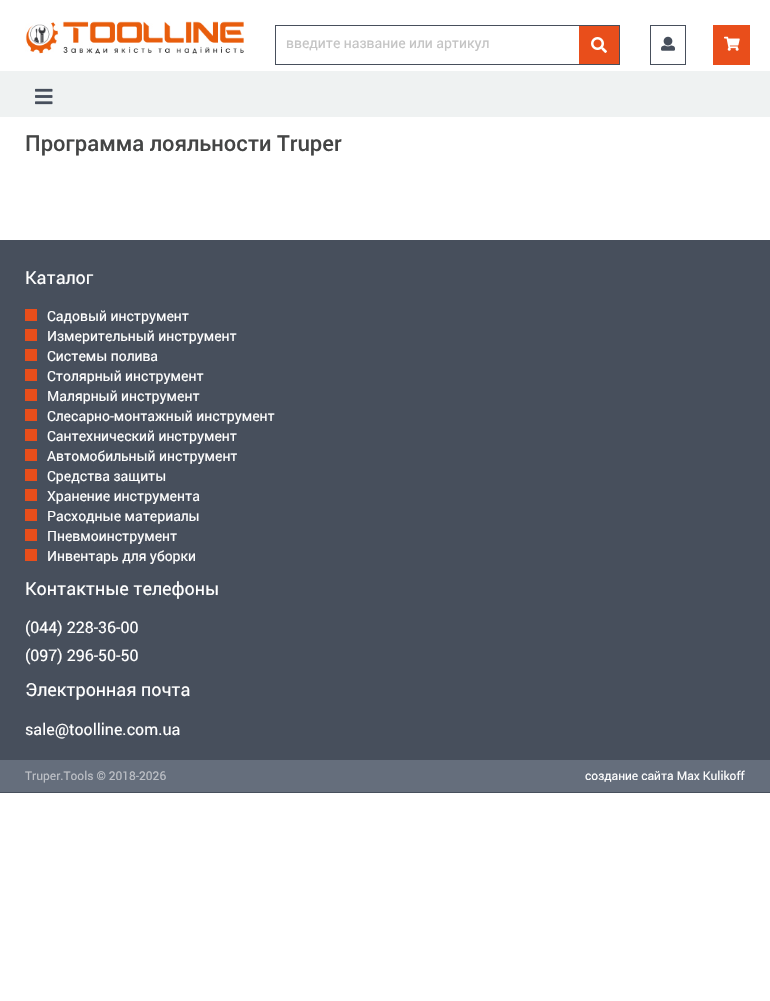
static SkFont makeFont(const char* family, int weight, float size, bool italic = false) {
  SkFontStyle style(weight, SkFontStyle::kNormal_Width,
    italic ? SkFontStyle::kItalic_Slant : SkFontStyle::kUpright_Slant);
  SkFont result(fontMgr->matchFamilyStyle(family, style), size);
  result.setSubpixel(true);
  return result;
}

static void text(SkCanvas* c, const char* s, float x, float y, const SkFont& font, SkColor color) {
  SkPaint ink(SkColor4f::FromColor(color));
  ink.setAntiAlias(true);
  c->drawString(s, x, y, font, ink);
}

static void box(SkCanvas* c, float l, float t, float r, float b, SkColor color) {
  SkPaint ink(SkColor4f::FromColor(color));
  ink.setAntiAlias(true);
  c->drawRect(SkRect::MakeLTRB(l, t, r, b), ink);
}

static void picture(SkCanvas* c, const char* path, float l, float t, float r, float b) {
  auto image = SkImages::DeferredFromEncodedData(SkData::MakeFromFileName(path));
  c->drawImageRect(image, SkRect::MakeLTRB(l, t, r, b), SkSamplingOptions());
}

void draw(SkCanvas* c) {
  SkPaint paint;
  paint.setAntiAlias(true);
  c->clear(0xffffffff);
  picture(c, "img_01.png", 25, 21, 244, 54);
  paint.setStyle(SkPaint::kStroke_Style);
  paint.setStrokeWidth(1);
  paint.setColor(0xff474f5c);
  c->drawRect(SkRect::MakeLTRB(275.5f, 25.5f, 619.5f, 64.5f), paint);
  SkFont face1 = makeFont("Roboto", 400, 14);
  text(c, "введите название или артикул", 286, 48, face1, 0xffc4c4c4);
  box(c, 579, 26, 619, 64, 0xffe94e1b);
  picture(c, "img_02.png", 591, 37, 607, 53);
  c->drawRect(SkRect::MakeLTRB(650.5f, 25.5f, 685.5f, 64.5f), paint);
  picture(c, "img_03.png", 661, 36, 675, 51);
  box(c, 713, 25, 750, 65, 0xffe94e1b);
  picture(c, "img_04.png", 724, 36, 740, 51);
  box(c, 0, 71, 770, 117, 0xffeff2f2);
  picture(c, "img_05.png", 35, 88, 53, 105);
  SkFont face2 = makeFont("Roboto", 500, 22);
  text(c, "Программа лояльности Truper", 25, 151, face2, 0xff444545);
  box(c, 0, 240, 770, 760, 0xff474f5c);
  SkFont face3 = makeFont("Roboto", 400, 18);
  text(c, "Каталог", 25, 284, face3, 0xffffffff);
  box(c, 25, 309, 37, 321, 0xffe94e1b);
  text(c, "Садовый инструмент", 47, 321, face1, 0xffffffff);
  box(c, 25, 329, 37, 341, 0xffe94e1b);
  text(c, "Измерительный инструмент", 47, 341, face1, 0xffffffff);
  box(c, 25, 349, 37, 361, 0xffe94e1b);
  text(c, "Системы полива", 47, 361, face1, 0xffffffff);
  box(c, 25, 369, 37, 381, 0xffe94e1b);
  text(c, "Столярный инструмент", 47, 381, face1, 0xffffffff);
  box(c, 25, 389, 37, 401, 0xffe94e1b);
  text(c, "Малярный инструмент", 47, 401, face1, 0xffffffff);
  box(c, 25, 409, 37, 421, 0xffe94e1b);
  text(c, "Слесарно-монтажный инструмент", 47, 421, face1, 0xffffffff);
  box(c, 25, 429, 37, 441, 0xffe94e1b);
  text(c, "Сантехнический инструмент", 47, 441, face1, 0xffffffff);
  box(c, 25, 449, 37, 461, 0xffe94e1b);
  text(c, "Автомобильный инструмент", 47, 461, face1, 0xffffffff);
  box(c, 25, 469, 37, 481, 0xffe94e1b);
  text(c, "Средства защиты", 47, 481, face1, 0xffffffff);
  box(c, 25, 489, 37, 501, 0xffe94e1b);
  text(c, "Хранение инструмента", 47, 501, face1, 0xffffffff);
  box(c, 25, 509, 37, 521, 0xffe94e1b);
  text(c, "Расходные материалы", 47, 521, face1, 0xffffffff);
  box(c, 25, 529, 37, 541, 0xffe94e1b);
  text(c, "Пневмоинструмент", 47, 541, face1, 0xffffffff);
  box(c, 25, 549, 37, 561, 0xffe94e1b);
  text(c, "Инвентарь для уборки", 47, 561, face1, 0xffffffff);
  text(c, "Контактные телефоны", 25, 595, face3, 0xffffffff);
  SkFont face4 = makeFont("Roboto", 400, 16);
  text(c, "(044) 228-36-00", 25, 633, face4, 0xffffffff);
  text(c, "(097) 296-50-50", 25, 661, face4, 0xffffffff);
  text(c, "Электронная почта", 25, 696, face3, 0xffffffff);
  text(c, "sale@toolline.com.ua", 25, 735, face4, 0xffffffff);
  box(c, 0, 760, 770, 792, 0xff656e7c);
  box(c, 0, 792, 770, 793, 0xff474f5c);
  SkFont face5 = makeFont("Roboto", 400, 12);
  text(c, "Truper.Tools © 2018-2026", 25, 780, face5, 0xffbdc0c6);
  text(c, "создание сайта Max Kulikoff", 585, 780, face5, 0xffffffff);
}
